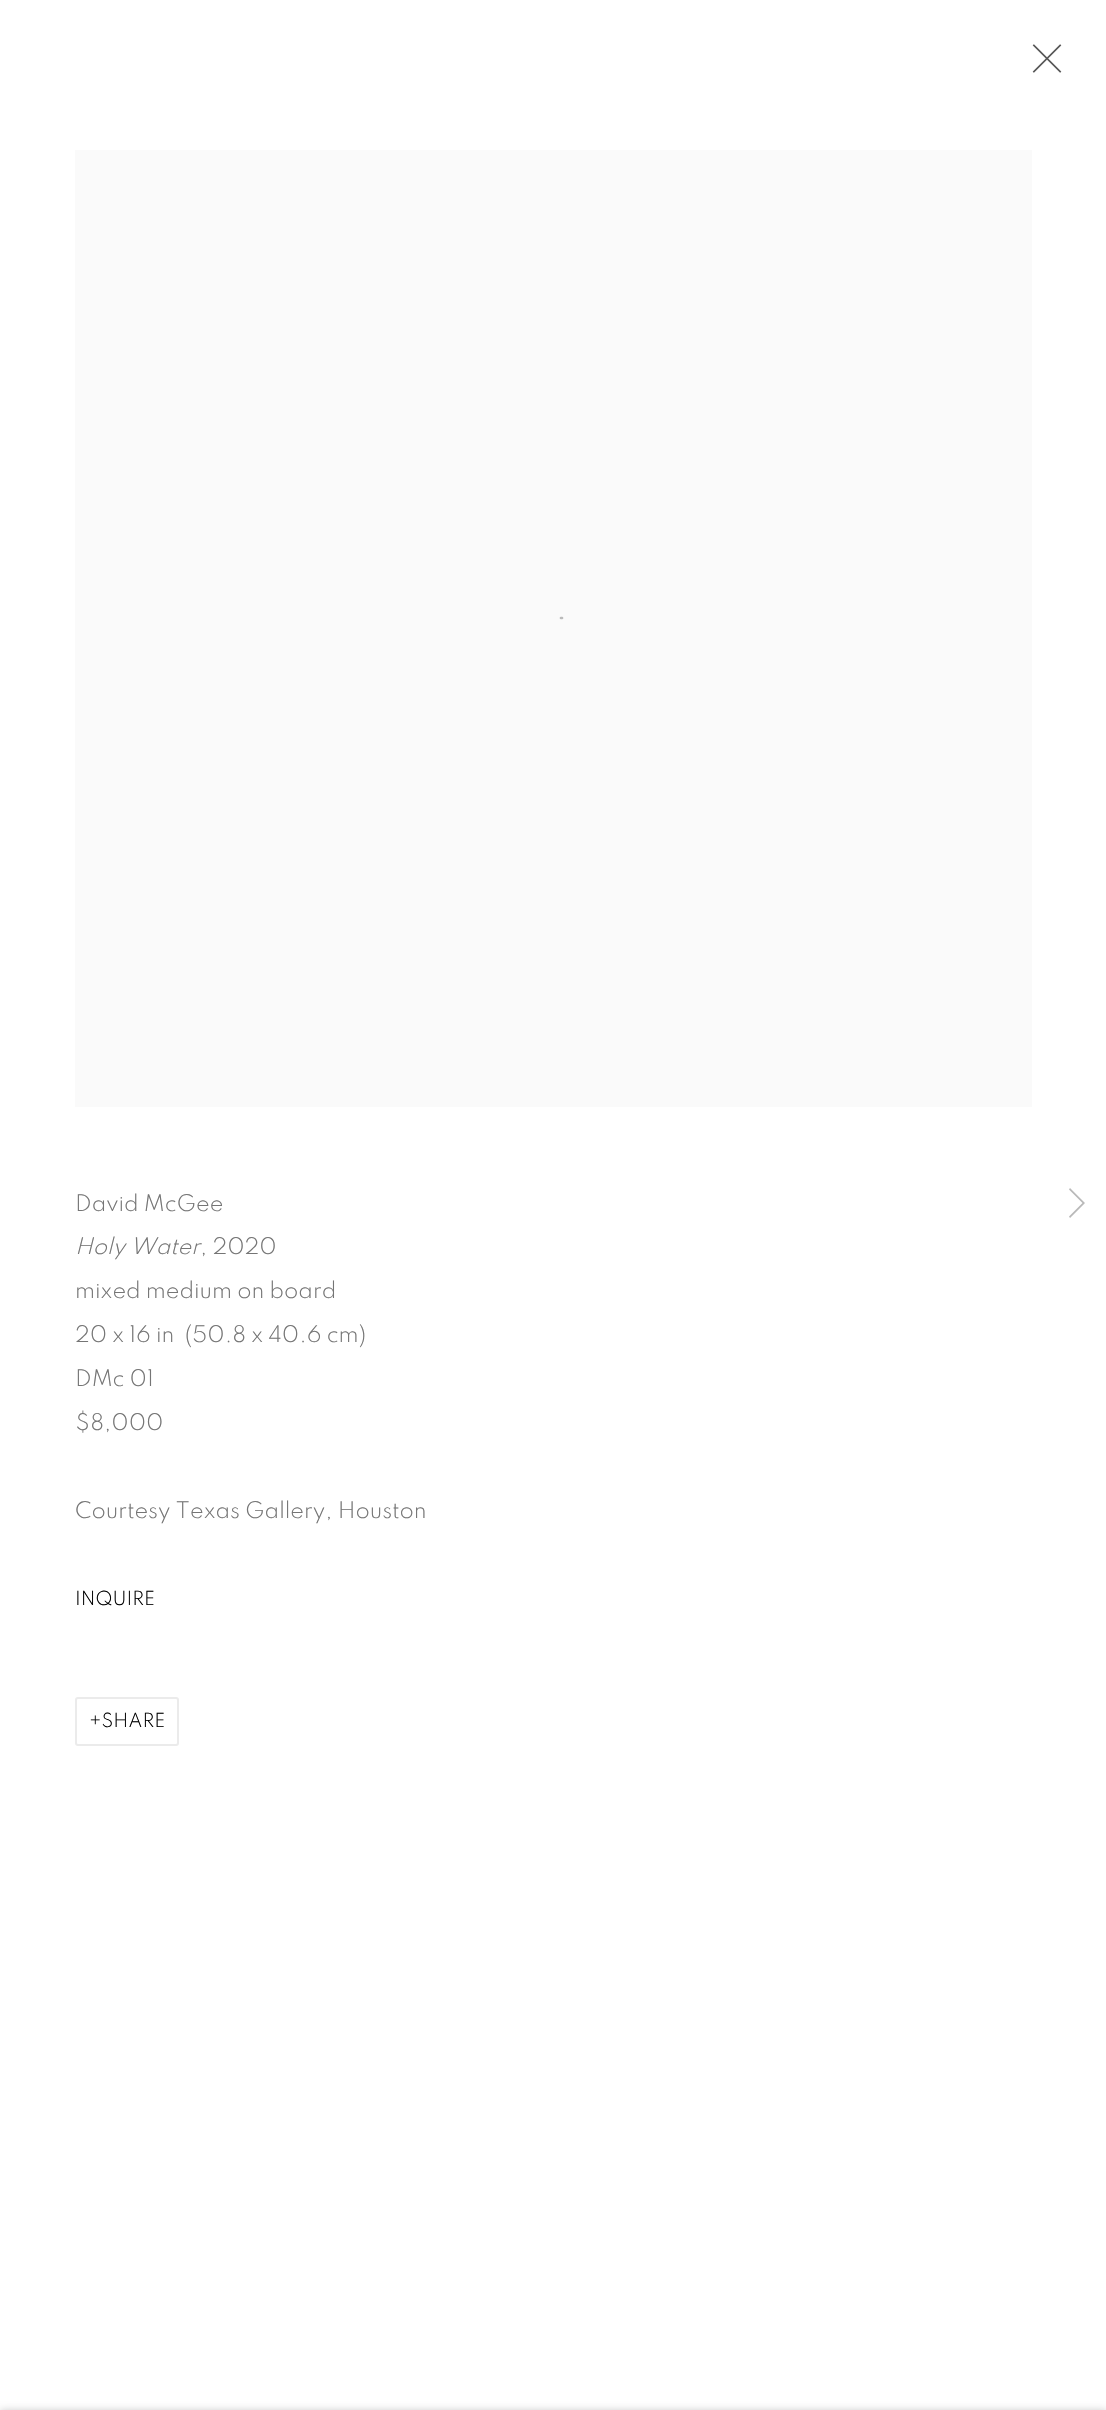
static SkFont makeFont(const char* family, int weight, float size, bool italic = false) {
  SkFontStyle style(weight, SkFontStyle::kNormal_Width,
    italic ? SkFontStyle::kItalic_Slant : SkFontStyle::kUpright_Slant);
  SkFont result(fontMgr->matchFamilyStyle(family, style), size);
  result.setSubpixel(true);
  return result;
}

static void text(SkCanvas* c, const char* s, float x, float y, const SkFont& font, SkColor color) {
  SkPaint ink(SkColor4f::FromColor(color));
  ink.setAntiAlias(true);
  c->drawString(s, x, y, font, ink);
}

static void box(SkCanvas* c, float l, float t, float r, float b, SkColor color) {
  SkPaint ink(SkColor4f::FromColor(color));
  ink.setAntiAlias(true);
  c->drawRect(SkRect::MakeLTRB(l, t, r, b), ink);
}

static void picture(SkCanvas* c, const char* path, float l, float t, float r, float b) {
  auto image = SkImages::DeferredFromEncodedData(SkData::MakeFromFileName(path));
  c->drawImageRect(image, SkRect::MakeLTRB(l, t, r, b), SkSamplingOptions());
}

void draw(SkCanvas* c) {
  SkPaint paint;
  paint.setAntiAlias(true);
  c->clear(0xffffffff);
  picture(c, "img_01.png", 1032, 44, 1062, 73);
  box(c, 75, 150, 1032, 1107, 0xfffafafa);
  paint.setStyle(SkPaint::kStroke_Style);
  paint.setStrokeWidth(2.7f);
  paint.setStrokeCap(SkPaint::kRound_Cap);
  paint.setColor(0xffbbbbbb);
  c->drawPath(SkPathBuilder().moveTo(561, 618).lineTo(562, 618).detach(), paint);
  SkFont face1 = makeFont("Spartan", 300, 23.6f);
  text(c, "David McGee", 75, 1211, face1, 0xff757575);
  SkFont face2 = makeFont("Spartan", 300, 23.6f, true);
  text(c, "Holy Water", 75, 1254, face2, 0xff757575);
  text(c, ", 2020", 200, 1254, face1, 0xff757575);
  text(c, "mixed medium on board", 75, 1298, face1, 0xff757575);
  text(c, "20 x 16 in  (50.8 x 40.6 cm)", 75, 1342, face1, 0xff757575);
  text(c, "DMc 01", 75, 1386, face1, 0xff757575);
  text(c, "$8,000", 75, 1430, face1, 0xff757575);
  text(c, "Courtesy Texas Gallery, Houston", 75, 1518, face1, 0xff757575);
  SkFont face3 = makeFont("Spartan", 300, 20);
  text(c, "INQUIRE", 75, 1605, face3, 0xff010101);
  paint.setStrokeWidth(2);
  paint.setStrokeCap(SkPaint::kButt_Cap);
  paint.setColor(0xffebebeb);
  c->drawRoundRect(SkRect::MakeLTRB(76, 1698, 178, 1745), 2, 2, paint);
  text(c, "+SHARE", 89, 1727, face3, 0xff010101);
  paint.setStyle(SkPaint::kFill_Style);
  paint.setColor(0xffb9b9b9);
  c->drawPath(SkPathBuilder().moveTo(1085, 1203).lineTo(1070, 1188).lineTo(1069, 1189.5f).lineTo(1082.5f, 1203).lineTo(1069, 1216.5f).lineTo(1070, 1218).close().detach(), paint);
  paint.setColor(0x3b000000);
  paint.setMaskFilter(SkMaskFilter::MakeBlur(kNormal_SkBlurStyle, 4));
  c->drawRect(SkRect::MakeLTRB(0, 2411, 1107, 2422), paint);
  paint.setMaskFilter(nullptr);
}
